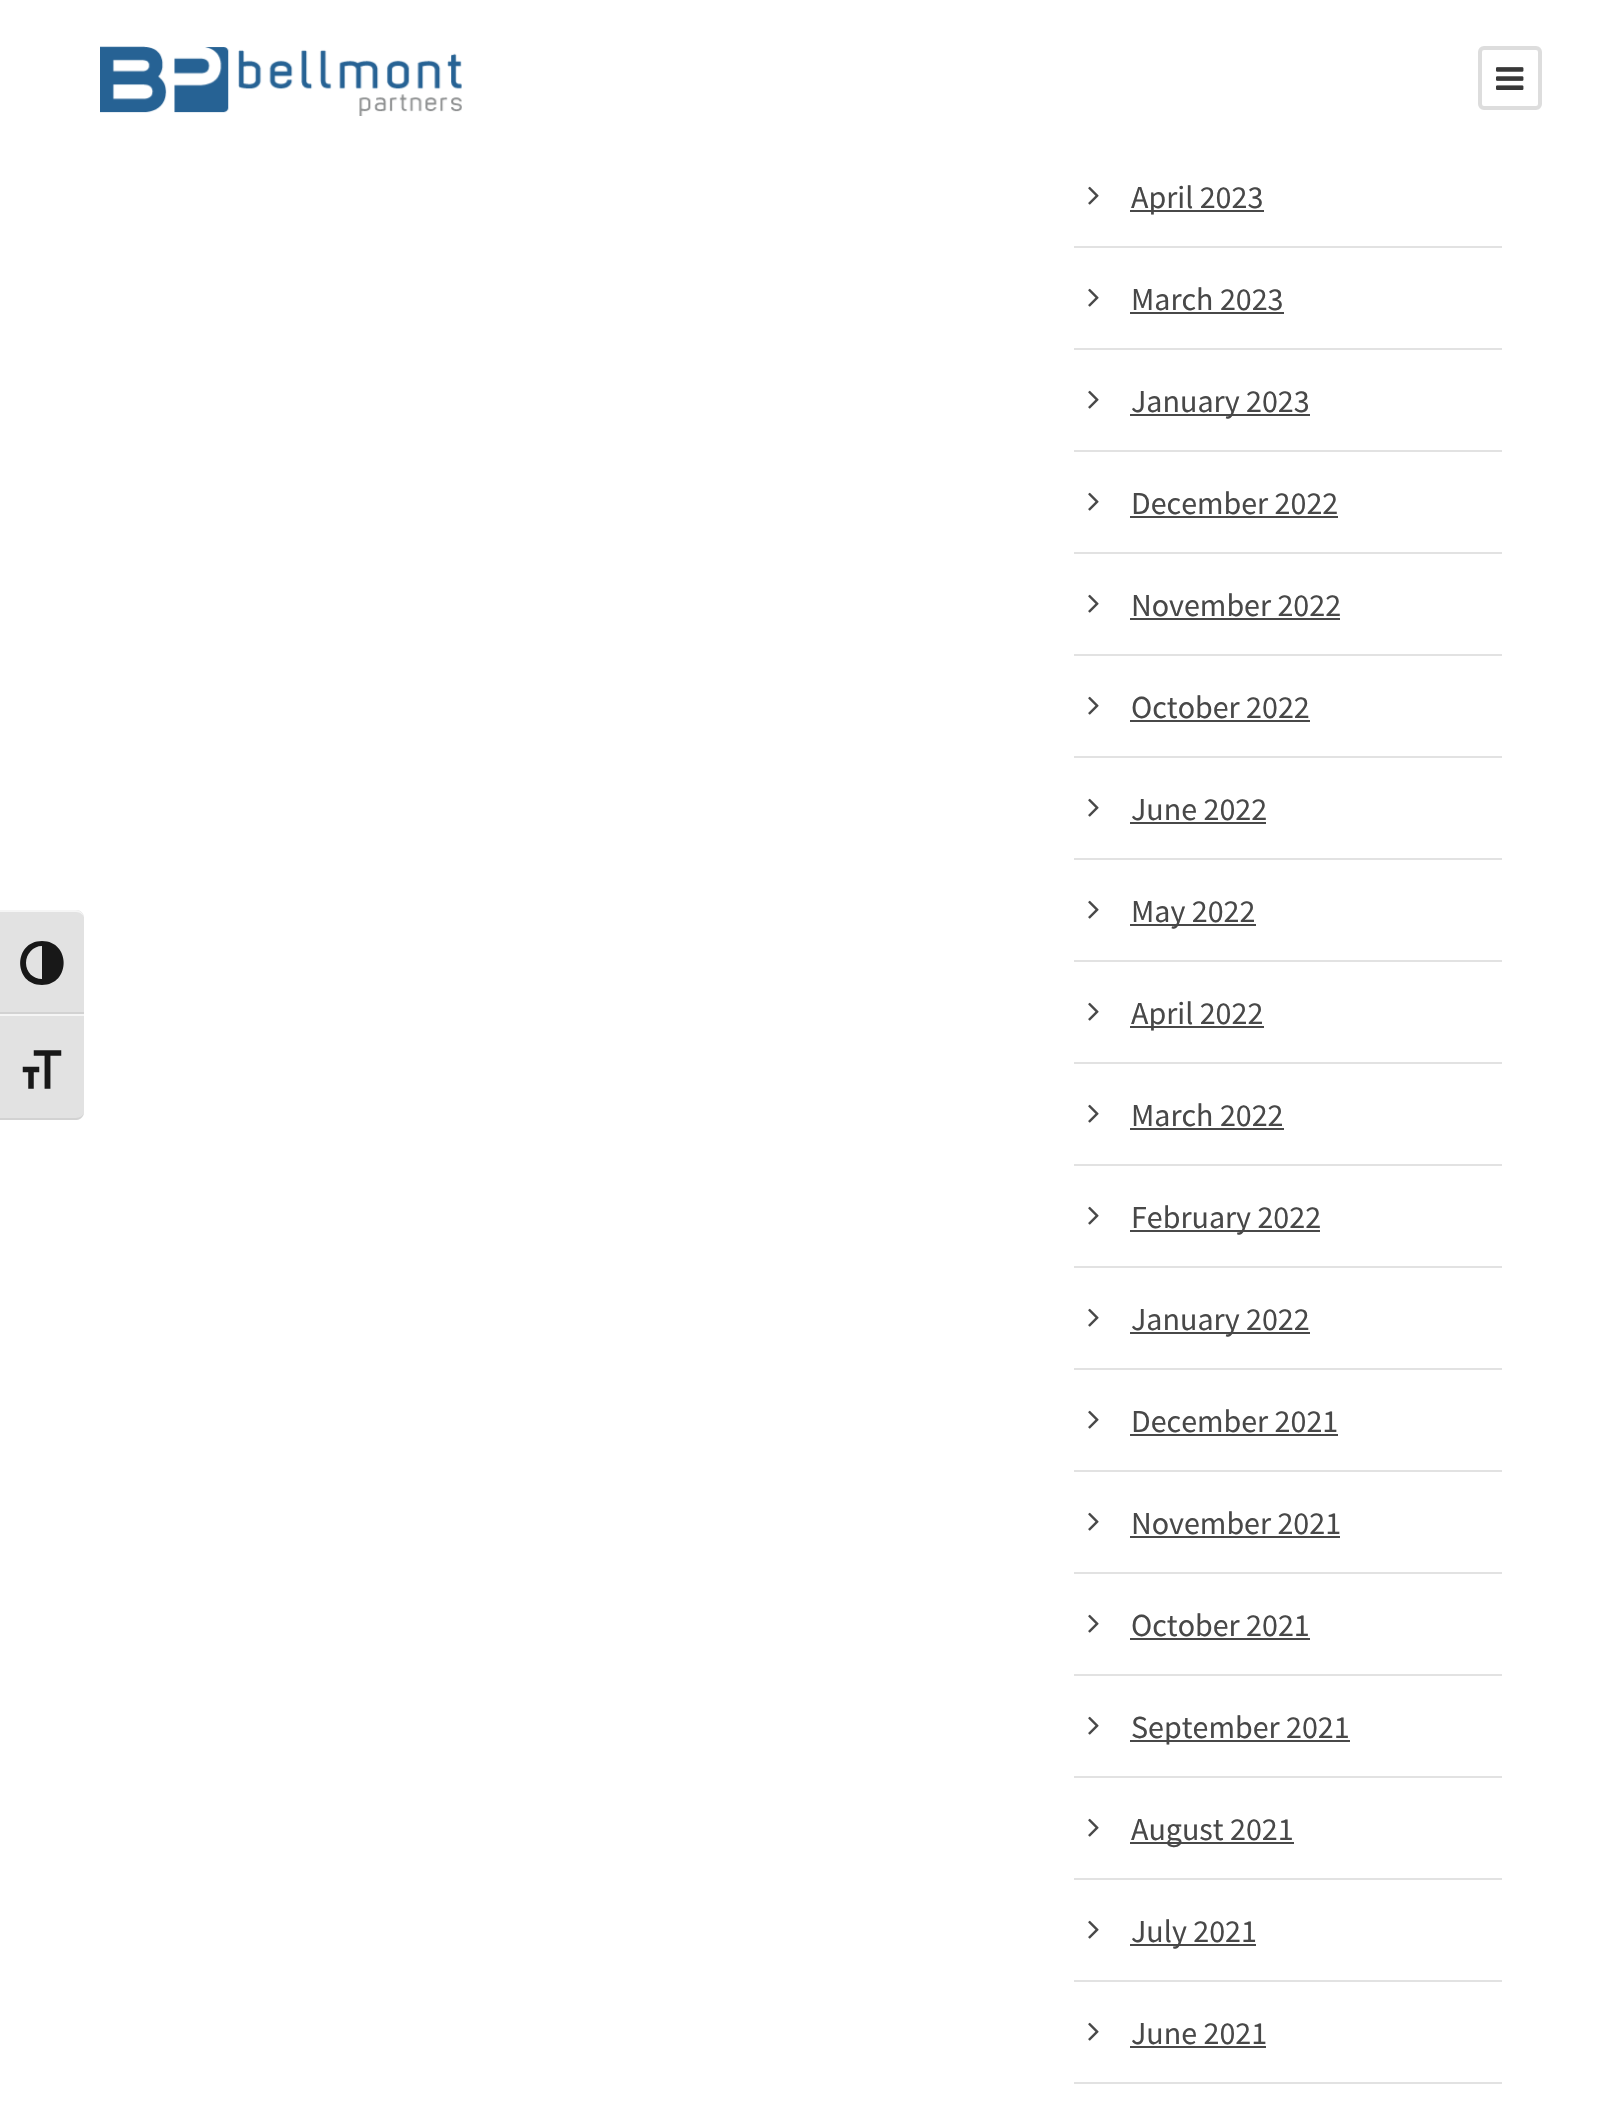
static SkFont makeFont(const char* family, int weight, float size, bool italic = false) {
  SkFontStyle style(weight, SkFontStyle::kNormal_Width,
    italic ? SkFontStyle::kItalic_Slant : SkFontStyle::kUpright_Slant);
  SkFont result(fontMgr->matchFamilyStyle(family, style), size);
  result.setSubpixel(true);
  return result;
}

static void text(SkCanvas* c, const char* s, float x, float y, const SkFont& font, SkColor color) {
  SkPaint ink(SkColor4f::FromColor(color));
  ink.setAntiAlias(true);
  c->drawString(s, x, y, font, ink);
}

static void box(SkCanvas* c, float l, float t, float r, float b, SkColor color) {
  SkPaint ink(SkColor4f::FromColor(color));
  ink.setAntiAlias(true);
  c->drawRect(SkRect::MakeLTRB(l, t, r, b), ink);
}

static void picture(SkCanvas* c, const char* path, float l, float t, float r, float b) {
  auto image = SkImages::DeferredFromEncodedData(SkData::MakeFromFileName(path));
  c->drawImageRect(image, SkRect::MakeLTRB(l, t, r, b), SkSamplingOptions());
}

void draw(SkCanvas* c) {
  SkPaint paint;
  paint.setAntiAlias(true);
  c->clear(0xffffffff);
  picture(c, "img_01.png", 100, 46, 462, 116);
  paint.setStyle(SkPaint::kStroke_Style);
  paint.setStrokeWidth(4);
  paint.setColor(0xffdddddd);
  c->drawRoundRect(SkRect::MakeLTRB(1480, 48, 1540, 108), 4, 4, paint);
  picture(c, "img_02.png", 1496, 67, 1524, 90);
  paint.setStyle(SkPaint::kFill_Style);
  paint.setColor(0xffe2e2e2);
  c->drawPath(SkPathBuilder().moveTo(0, 910).lineTo(76, 910).cubicTo(80.5f, 910, 84, 913.5f, 84, 918).lineTo(84, 1014).lineTo(0, 1014).close().detach(), paint);
  paint.setColor(0xfff5f5f5);
  c->drawPath(SkPathBuilder().moveTo(0, 910).lineTo(0, 912).lineTo(76, 912).cubicTo(80, 912, 84, 915, 84, 918).cubicTo(84, 914, 80, 910, 76, 910).close().detach(), paint);
  box(c, 0, 1012, 84, 1014, 0xffd2d2d2);
  paint.setColor(0xff181818);
  c->drawPath(SkPathBuilder().moveTo(42, 941).cubicTo(13, 941, 13, 985, 42, 985).cubicTo(71, 985, 71, 941, 42, 941).close().moveTo(26, 963).cubicTo(26, 954, 33, 946, 42, 946).lineTo(42, 979).cubicTo(33, 979, 26, 972, 26, 963).close().detach(), paint);
  paint.setColor(0xffe2e2e2);
  c->drawPath(SkPathBuilder().moveTo(0, 1014).lineTo(84, 1014).lineTo(84, 1112).cubicTo(84, 1116.5f, 80.5f, 1120, 76, 1120).lineTo(0, 1120).close().detach(), paint);
  box(c, 0, 1014, 84, 1016, 0xfff5f5f5);
  paint.setColor(0xffd2d2d2);
  c->drawPath(SkPathBuilder().moveTo(0, 1118).lineTo(0, 1120).lineTo(76, 1120).cubicTo(80, 1120, 84, 1116, 84, 1112).cubicTo(84, 1115, 80, 1118, 76, 1118).close().detach(), paint);
  picture(c, "img_03.png", 22, 1050, 62, 1089);
  box(c, 1074, 246, 1502, 248, 0xffe2e2e2);
  picture(c, "img_04.png", 1088, 186, 1099, 205);
  box(c, 1130, 210, 1264, 212, 0xff484848);
  SkFont face1 = makeFont("Source Sans Pro", 400, 32);
  text(c, "April 2023", 1131, 208, face1, 0xff484848);
  box(c, 1074, 348, 1502, 350, 0xffe2e2e2);
  picture(c, "img_04.png", 1088, 288, 1099, 307);
  text(c, "March 2023", 1131, 310, face1, 0xff484848);
  box(c, 1130, 312, 1284, 314, 0xff484848);
  box(c, 1074, 450, 1502, 452, 0xffe2e2e2);
  picture(c, "img_04.png", 1088, 390, 1099, 409);
  box(c, 1130, 414, 1310, 416, 0xff484848);
  text(c, "January 2023", 1131, 412, face1, 0xff484848);
  box(c, 1074, 552, 1502, 554, 0xffe2e2e2);
  picture(c, "img_04.png", 1088, 492, 1099, 511);
  text(c, "December 2022", 1131, 514, face1, 0xff484848);
  box(c, 1130, 516, 1338, 518, 0xff484848);
  box(c, 1074, 654, 1502, 656, 0xffe2e2e2);
  picture(c, "img_04.png", 1088, 594, 1099, 613);
  text(c, "November 2022", 1131, 616, face1, 0xff484848);
  box(c, 1130, 618, 1340, 620, 0xff484848);
  box(c, 1074, 756, 1502, 758, 0xffe2e2e2);
  picture(c, "img_04.png", 1088, 696, 1099, 715);
  text(c, "October 2022", 1131, 718, face1, 0xff484848);
  box(c, 1130, 720, 1310, 722, 0xff484848);
  box(c, 1074, 858, 1502, 860, 0xffe2e2e2);
  picture(c, "img_04.png", 1088, 798, 1099, 817);
  text(c, "June 2022", 1131, 820, face1, 0xff484848);
  box(c, 1130, 822, 1266, 824, 0xff484848);
  box(c, 1074, 960, 1502, 962, 0xffe2e2e2);
  picture(c, "img_04.png", 1088, 900, 1099, 919);
  box(c, 1130, 924, 1256, 926, 0xff484848);
  text(c, "May 2022", 1131, 922, face1, 0xff484848);
  box(c, 1074, 1062, 1502, 1064, 0xffe2e2e2);
  picture(c, "img_04.png", 1088, 1002, 1099, 1021);
  box(c, 1130, 1026, 1264, 1028, 0xff484848);
  text(c, "April 2022", 1131, 1024, face1, 0xff484848);
  box(c, 1074, 1164, 1502, 1166, 0xffe2e2e2);
  picture(c, "img_04.png", 1088, 1104, 1099, 1123);
  text(c, "March 2022", 1131, 1126, face1, 0xff484848);
  box(c, 1130, 1128, 1284, 1130, 0xff484848);
  box(c, 1074, 1266, 1502, 1268, 0xffe2e2e2);
  picture(c, "img_04.png", 1088, 1206, 1099, 1225);
  box(c, 1130, 1230, 1320, 1232, 0xff484848);
  text(c, "February 2022", 1131, 1228, face1, 0xff484848);
  box(c, 1074, 1368, 1502, 1370, 0xffe2e2e2);
  picture(c, "img_04.png", 1088, 1308, 1099, 1327);
  box(c, 1130, 1332, 1310, 1334, 0xff484848);
  text(c, "January 2022", 1131, 1330, face1, 0xff484848);
  box(c, 1074, 1470, 1502, 1472, 0xffe2e2e2);
  picture(c, "img_04.png", 1088, 1410, 1099, 1429);
  text(c, "December 2021", 1131, 1432, face1, 0xff484848);
  box(c, 1130, 1434, 1338, 1436, 0xff484848);
  box(c, 1074, 1572, 1502, 1574, 0xffe2e2e2);
  picture(c, "img_04.png", 1088, 1512, 1099, 1531);
  text(c, "November 2021", 1131, 1534, face1, 0xff484848);
  box(c, 1130, 1536, 1340, 1538, 0xff484848);
  box(c, 1074, 1674, 1502, 1676, 0xffe2e2e2);
  picture(c, "img_04.png", 1088, 1614, 1099, 1633);
  text(c, "October 2021", 1131, 1636, face1, 0xff484848);
  box(c, 1130, 1638, 1310, 1640, 0xff484848);
  box(c, 1074, 1776, 1502, 1778, 0xffe2e2e2);
  picture(c, "img_04.png", 1088, 1716, 1099, 1735);
  box(c, 1130, 1740, 1350, 1742, 0xff484848);
  text(c, "September 2021", 1131, 1738, face1, 0xff484848);
  box(c, 1074, 1878, 1502, 1880, 0xffe2e2e2);
  picture(c, "img_04.png", 1088, 1818, 1099, 1837);
  box(c, 1130, 1842, 1294, 1844, 0xff484848);
  text(c, "August 2021", 1131, 1840, face1, 0xff484848);
  box(c, 1074, 1980, 1502, 1982, 0xffe2e2e2);
  picture(c, "img_04.png", 1088, 1920, 1099, 1939);
  box(c, 1130, 1944, 1256, 1946, 0xff484848);
  text(c, "July 2021", 1131, 1942, face1, 0xff484848);
  box(c, 1074, 2082, 1502, 2084, 0xffe2e2e2);
  picture(c, "img_04.png", 1088, 2022, 1099, 2041);
  text(c, "June 2021", 1131, 2044, face1, 0xff484848);
  box(c, 1130, 2046, 1266, 2048, 0xff484848);
}
